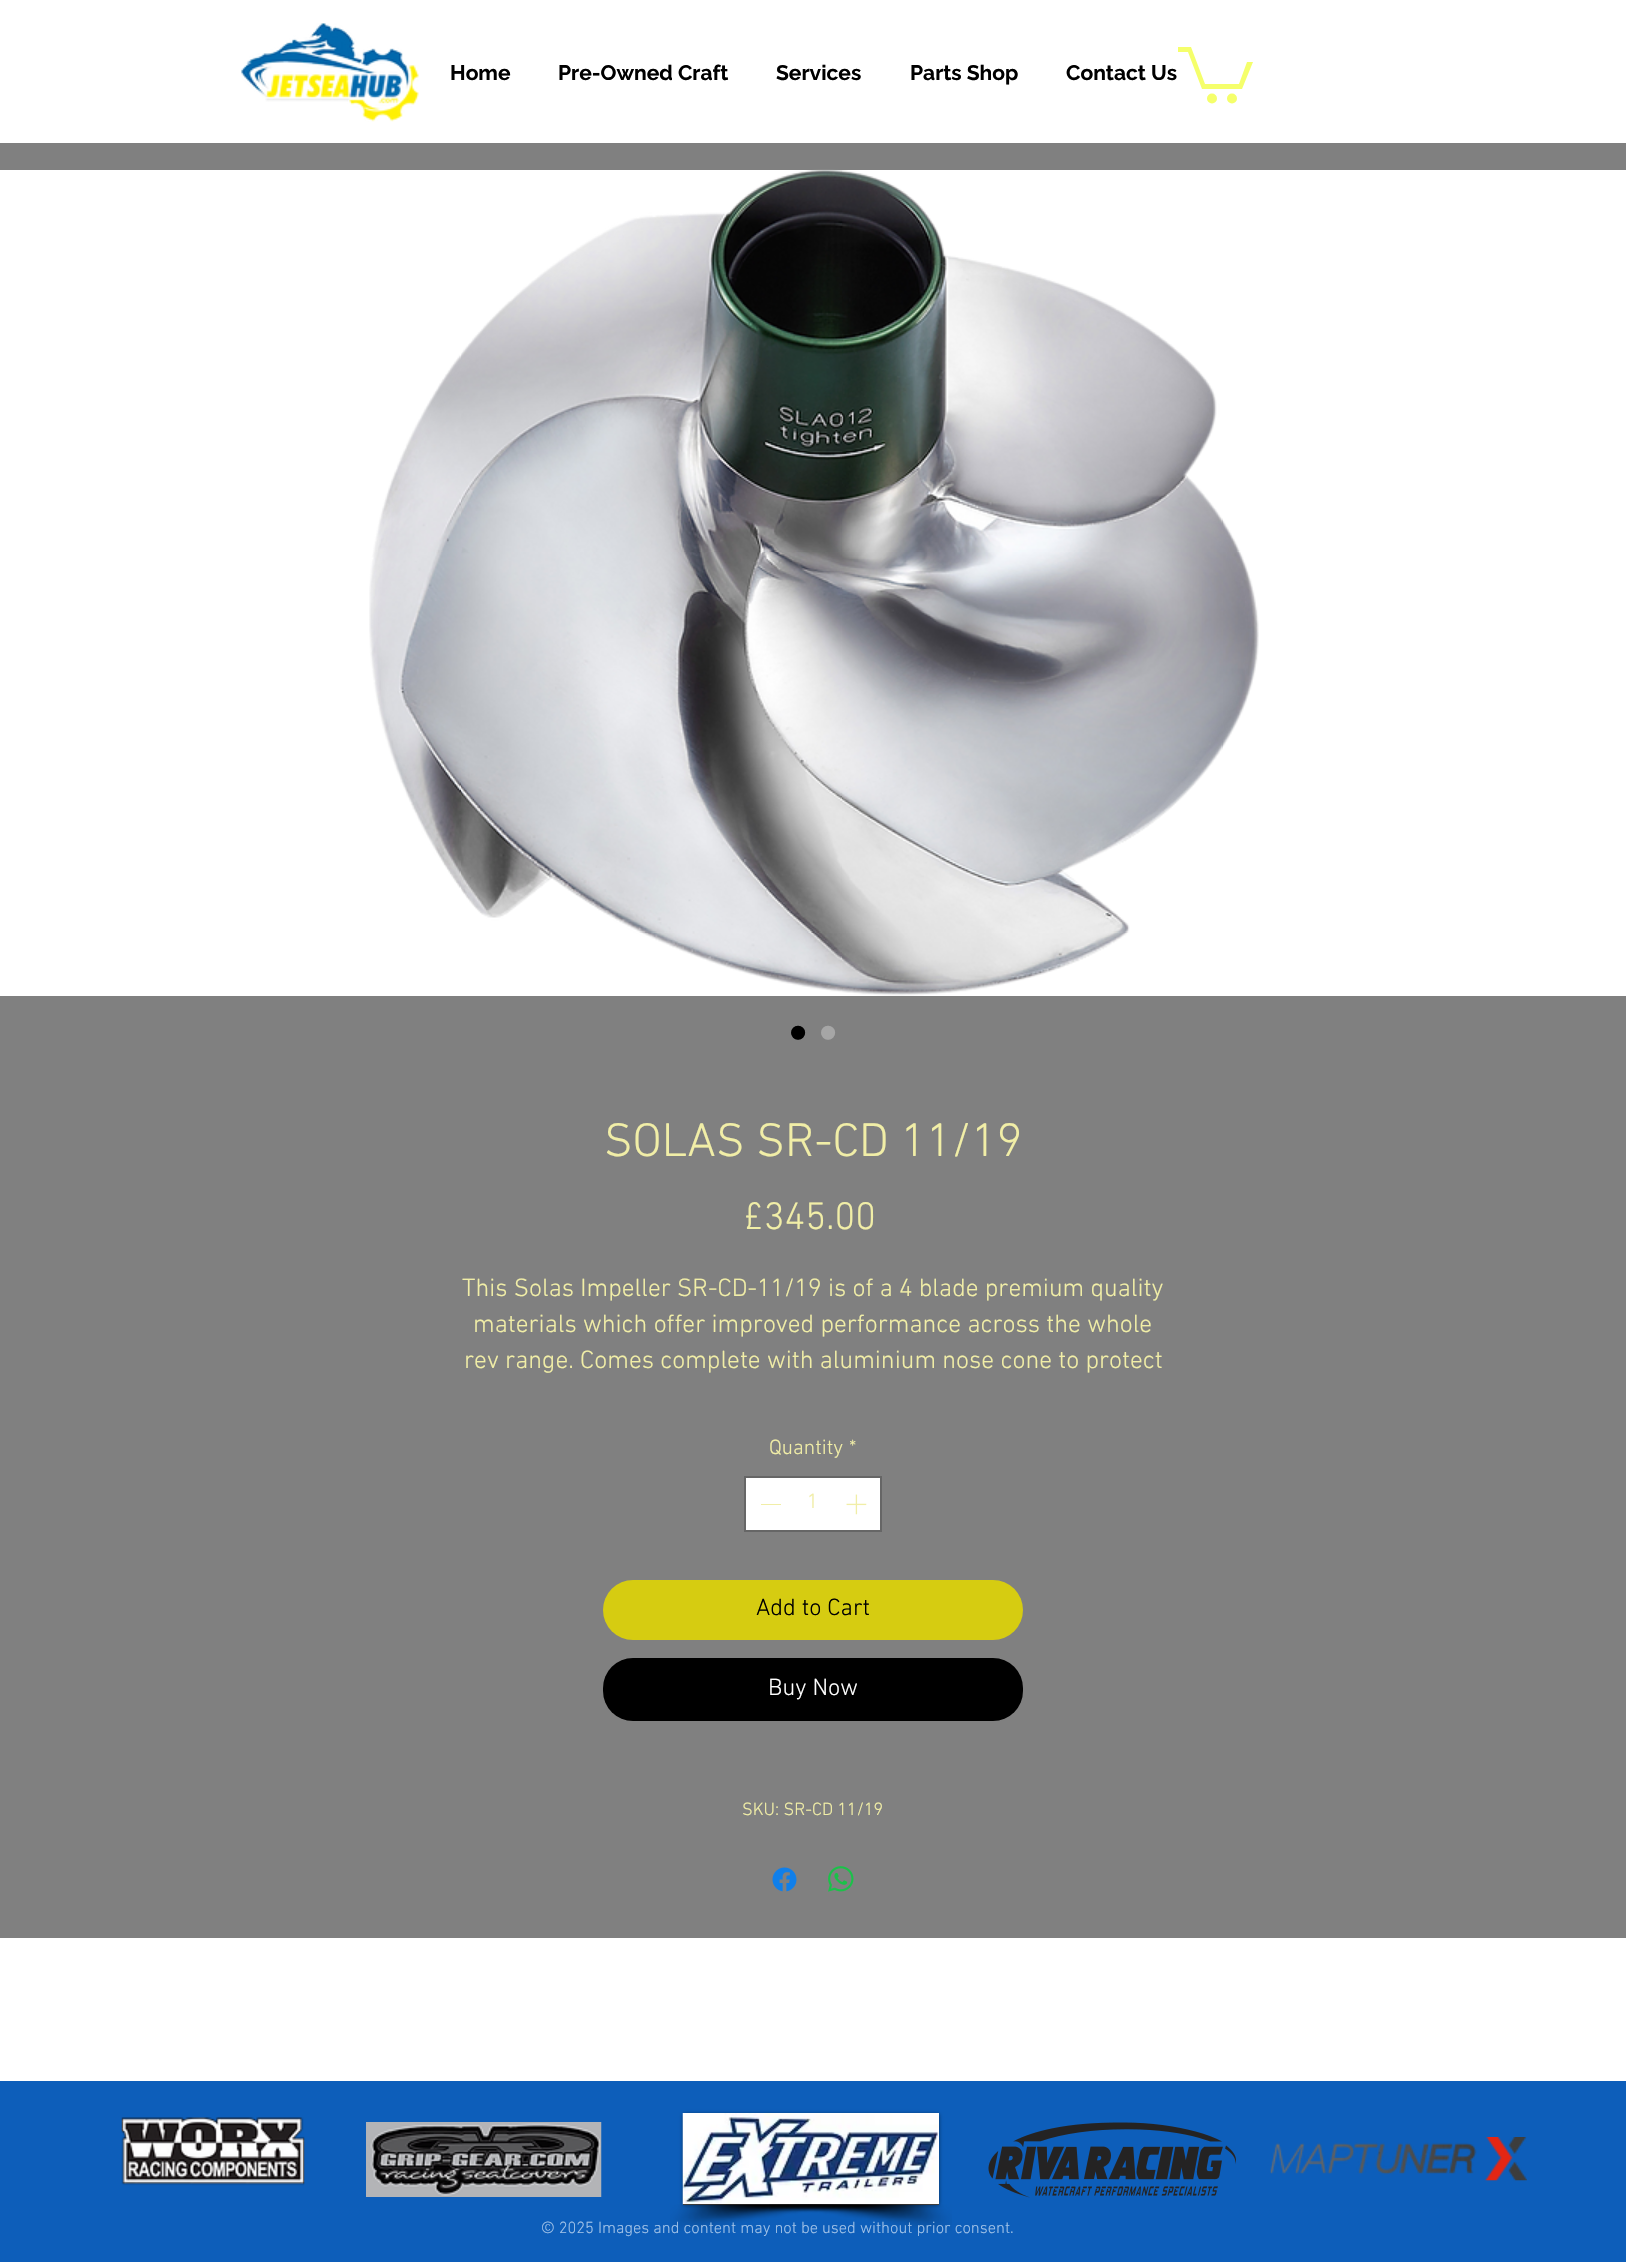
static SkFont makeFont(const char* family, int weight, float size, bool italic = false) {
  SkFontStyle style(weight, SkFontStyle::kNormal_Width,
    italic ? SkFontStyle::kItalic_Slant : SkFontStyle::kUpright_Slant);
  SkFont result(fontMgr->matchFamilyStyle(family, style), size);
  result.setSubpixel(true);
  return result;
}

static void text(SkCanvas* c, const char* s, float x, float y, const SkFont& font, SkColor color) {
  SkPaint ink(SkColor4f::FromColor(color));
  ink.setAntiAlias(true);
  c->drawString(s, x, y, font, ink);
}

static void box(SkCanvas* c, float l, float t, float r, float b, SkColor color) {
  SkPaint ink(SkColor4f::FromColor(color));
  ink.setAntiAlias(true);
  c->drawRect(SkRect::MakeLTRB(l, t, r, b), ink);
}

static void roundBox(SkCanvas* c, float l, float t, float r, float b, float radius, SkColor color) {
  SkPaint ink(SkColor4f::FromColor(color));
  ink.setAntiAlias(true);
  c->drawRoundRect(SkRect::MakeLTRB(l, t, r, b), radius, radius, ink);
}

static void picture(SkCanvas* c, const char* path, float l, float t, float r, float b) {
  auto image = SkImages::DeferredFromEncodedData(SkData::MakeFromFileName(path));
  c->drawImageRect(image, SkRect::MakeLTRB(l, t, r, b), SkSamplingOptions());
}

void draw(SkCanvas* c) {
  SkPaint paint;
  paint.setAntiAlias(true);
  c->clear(0xff808080);
  box(c, 0, 0, 1626, 143, 0xffffffff);
  picture(c, "img_01.png", 241, 23, 419, 122);
  SkFont face1 = makeFont("Raleway", 700, 21);
  text(c, "Home", 450, 80, face1, 0xff000000);
  text(c, "Pre-Owned Craft", 558, 80, face1, 0xff000000);
  text(c, "Services", 776, 80, face1, 0xff000000);
  text(c, "Parts Shop", 910, 80, face1, 0xff000000);
  text(c, "Contact Us", 1066, 80, face1, 0xff000000);
  paint.setColor(0xfff5ff6b);
  c->drawPath(SkPathBuilder().moveTo(1253, 62).lineTo(1242, 89).lineTo(1202, 89).lineTo(1188, 52).lineTo(1178, 52).lineTo(1178, 47).lineTo(1191, 47).lineTo(1205, 84).lineTo(1239, 84).lineTo(1247, 62).detach(), paint);
  c->drawCircle(1232, 98.5f, 5, paint);
  c->drawCircle(1212, 98.5f, 5, paint);
  box(c, 0, 170, 1626, 996, 0xffffffff);
  picture(c, "img_02.png", 369, 169, 1259, 996);
  SkFont face2 = makeFont("Liberation Sans", 400, 52);
  text(c, "•", 789, 1050, face2, 0xff000000);
  text(c, "•", 819, 1050, face2, 0xffa6a6a6);
  SkFont face3 = makeFont("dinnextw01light", 300, 48);
  text(c, "SOLAS SR-CD 11/19", 604, 1156, face3, 0xfff1eea7);
  SkFont face4 = makeFont("dinnextw01light", 300, 39);
  text(c, "£345.00", 743, 1229, face4, 0xfff1eea7);
  SkFont face5 = makeFont("dinnextw01light", 300, 25.5f);
  text(c, "This Solas Impeller SR-CD-11/19 is of a 4 blade premium quality", 462, 1296, face5, 0xfff1eea7);
  text(c, "materials which offer improved performance across the whole", 473, 1332, face5, 0xfff1eea7);
  text(c, "rev range. Comes complete with aluminium nose cone to protect", 464, 1368, face5, 0xfff1eea7);
  SkFont face6 = makeFont("dinnextw01light", 300, 21);
  text(c, "Quantity", 769, 1454, face6, 0xfff1eea7);
  text(c, "*", 849, 1454, face6, 0xfff1eea7);
  paint.setColor(0xffffffff);
  c->drawRect(SkRect::MakeLTRB(745, 1477, 881, 1531), paint);
  paint.setStyle(SkPaint::kStroke_Style);
  paint.setStrokeWidth(2);
  paint.setColor(0xff666666);
  c->drawRect(SkRect::MakeLTRB(745, 1477, 881, 1531), paint);
  box(c, 761, 1504, 781, 1505, 0xfff1eea7);
  text(c, "1", 807, 1508, face6, 0xfff1eea7);
  picture(c, "img_03.png", 846, 1494, 867, 1515);
  roundBox(c, 603, 1580, 1023, 1640, 30, 0xffd6cc11);
  SkFont face7 = makeFont("dinnextw01light", 300, 24);
  text(c, "Add to Cart", 756, 1615, face7, 0xff000000);
  roundBox(c, 603, 1658, 1023, 1721, 30, 0xff000000);
  text(c, "Buy Now", 768, 1695, face7, 0xffffffff);
  SkFont face8 = makeFont("dinnextw01light", 300, 18);
  text(c, "SKU: SR-CD 11/19", 742, 1815, face8, 0xfff1eea7);
  picture(c, "img_04.png", 772, 1867, 797, 1892);
  picture(c, "img_05.png", 828, 1866, 854, 1892);
  box(c, 0, 1938, 1626, 2081, 0xffffffff);
  box(c, 0, 2081, 1626, 2262, 0xff0d5eba);
  picture(c, "img_06.png", 121, 2117, 305, 2186);
  picture(c, "img_07.png", 366, 2122, 602, 2197);
  paint.setStyle(SkPaint::kFill_Style);
  paint.setColor(0x80000000);
  paint.setMaskFilter(SkMaskFilter::MakeBlur(kNormal_SkBlurStyle, 2));
  c->drawRect(SkRect::MakeLTRB(683, 2114, 939, 2205), paint);
  paint.setMaskFilter(nullptr);
  box(c, 683, 2204, 939, 2205, 0xff000000);
  picture(c, "img_08.png", 682, 2113, 939, 2205);
  picture(c, "img_09.png", 670, 2204, 890, 2231);
  picture(c, "img_10.png", 769, 2204, 952, 2231);
  picture(c, "img_11.png", 988, 2122, 1236, 2198);
  picture(c, "img_12.png", 1270, 2137, 1527, 2181);
  SkFont face9 = makeFont("dinnextw01light", 300, 16.5f);
  text(c, "© 2025 Images and content may not be used without prior consent.", 541, 2233, face9, 0xffa0c2e8);
}
